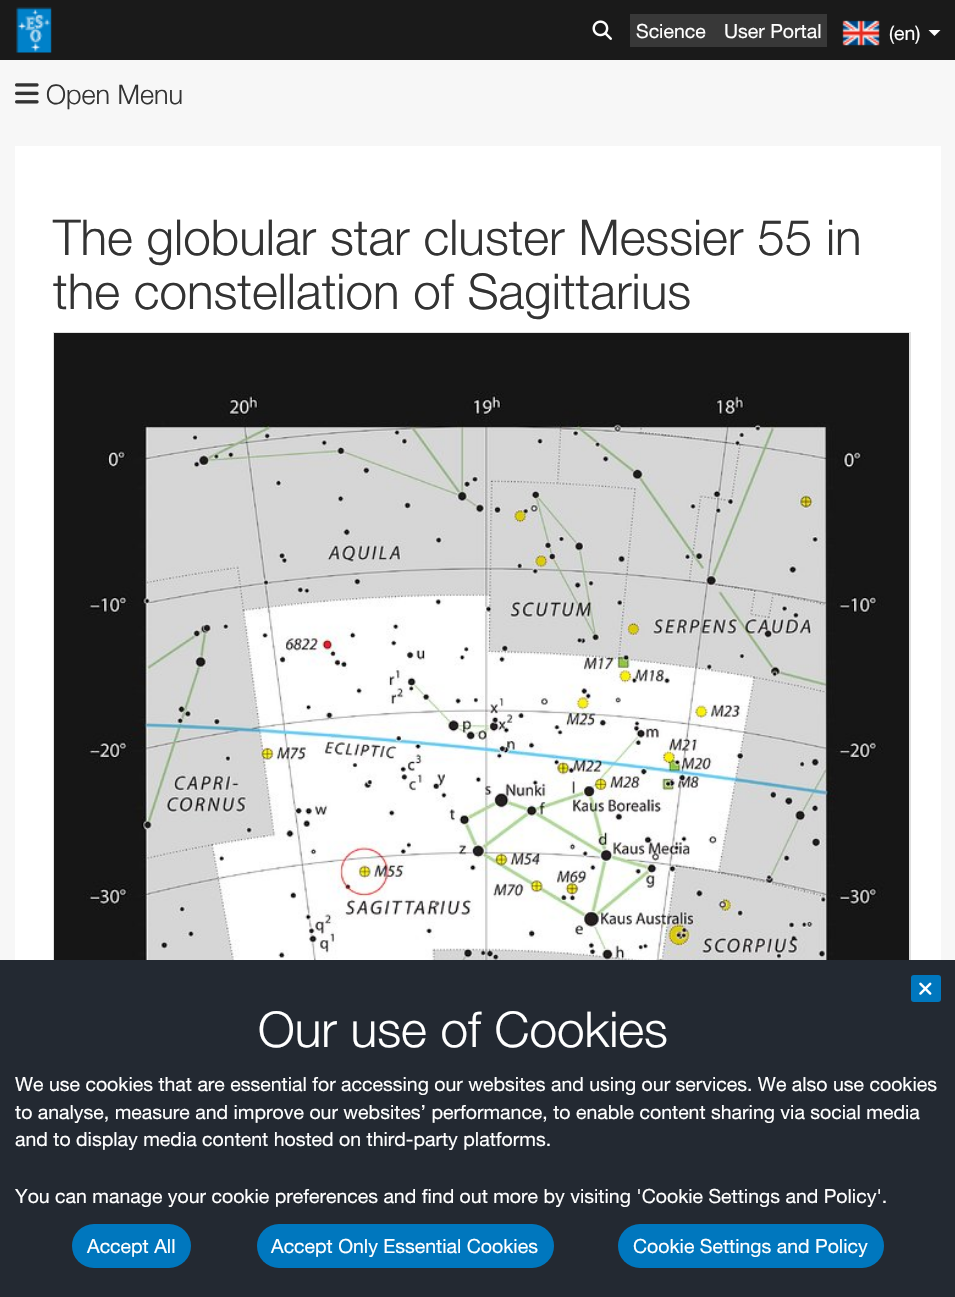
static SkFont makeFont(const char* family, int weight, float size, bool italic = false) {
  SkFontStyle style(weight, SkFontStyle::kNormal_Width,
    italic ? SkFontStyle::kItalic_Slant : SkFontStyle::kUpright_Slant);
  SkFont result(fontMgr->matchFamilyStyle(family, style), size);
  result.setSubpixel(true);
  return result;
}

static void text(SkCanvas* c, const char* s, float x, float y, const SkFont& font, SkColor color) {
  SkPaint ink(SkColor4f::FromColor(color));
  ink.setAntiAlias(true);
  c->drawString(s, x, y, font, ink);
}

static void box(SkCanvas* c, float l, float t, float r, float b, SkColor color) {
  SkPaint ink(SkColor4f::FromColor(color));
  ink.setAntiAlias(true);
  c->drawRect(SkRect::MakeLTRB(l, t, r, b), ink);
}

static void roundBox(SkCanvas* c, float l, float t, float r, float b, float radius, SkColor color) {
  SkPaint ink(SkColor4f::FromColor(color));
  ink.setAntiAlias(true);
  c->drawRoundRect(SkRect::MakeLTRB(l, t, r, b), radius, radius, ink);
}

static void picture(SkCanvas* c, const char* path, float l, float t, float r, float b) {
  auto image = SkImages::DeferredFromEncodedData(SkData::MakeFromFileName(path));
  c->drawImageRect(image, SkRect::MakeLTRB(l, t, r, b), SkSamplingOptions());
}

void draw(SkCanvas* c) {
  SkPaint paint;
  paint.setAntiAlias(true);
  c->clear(0xfff7f7f7);
  box(c, 0, 0, 955, 60, 0xff1a1a1a);
  picture(c, "img_01.png", 16, 7, 52, 53);
  picture(c, "img_02.png", 592, 20, 612, 40);
  box(c, 630, 14, 827, 47, 0xff383838);
  SkFont face1 = makeFont("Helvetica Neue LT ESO", 400, 19.5f);
  text(c, "Science", 636, 38, face1, 0xffffffff);
  text(c, "User Portal", 724, 38, face1, 0xffffffff);
  picture(c, "img_03.png", 842, 20, 880, 46);
  text(c, "(en)", 889, 40, face1, 0xffffffff);
  paint.setColor(0xffffffff);
  c->drawPath(SkPathBuilder().moveTo(928.5f, 30).lineTo(940.5f, 30).lineTo(934.5f, 36).close().detach(), paint);
  picture(c, "img_04.png", 15, 83, 39, 104);
  SkFont face2 = makeFont("Helvetica Neue LT ESO", 300, 27);
  text(c, "Open Menu", 46, 104, face2, 0xff333333);
  box(c, 15, 146, 941, 960, 0xffffffff);
  SkFont face3 = makeFont("Helvetica Neue LT ESO", 300, 49.5f);
  text(c, "The globular star cluster Messier 55 in", 53, 255, face3, 0xff333333);
  text(c, "the constellation of Sagittarius", 53, 309, face3, 0xff333333);
  paint.setStyle(SkPaint::kStroke_Style);
  paint.setStrokeWidth(2);
  paint.setColor(0xffe0e0e0);
  c->drawRect(SkRect::MakeLTRB(54, 333, 910, 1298), paint);
  picture(c, "img_05.png", 54, 333, 909, 960);
  box(c, 0, 960, 955, 1297, 0xff232932);
  roundBox(c, 911, 975, 941, 1002, 3, 0xff0077be);
  picture(c, "img_06.png", 919, 982, 932, 995);
  text(c, "Our use of Cookies", 258, 1047, face3, 0xffffffff);
  text(c, "We use cookies that are essential for accessing our websites and using our services. We also use cookies", 15, 1091, face1, 0xffffffff);
  text(c, "to analyse, measure and improve our websites’ performance, to enable content sharing via social media", 15, 1119, face1, 0xffffffff);
  text(c, "and to display media content hosted on third-party platforms.", 15, 1146, face1, 0xffffffff);
  text(c, "You can manage your cookie preferences and find out more by visiting 'Cookie Settings and Policy'.", 15, 1203, face1, 0xffffffff);
  roundBox(c, 72, 1224, 191, 1268, 22, 0xff0077be);
  text(c, "Accept All", 87, 1253, face1, 0xffffffff);
  roundBox(c, 257, 1224, 554, 1268, 22, 0xff0077be);
  text(c, "Accept Only Essential Cookies", 271, 1253, face1, 0xffffffff);
  roundBox(c, 618, 1224, 884, 1268, 22, 0xff0077be);
  text(c, "Cookie Settings and Policy", 633, 1253, face1, 0xffffffff);
}
